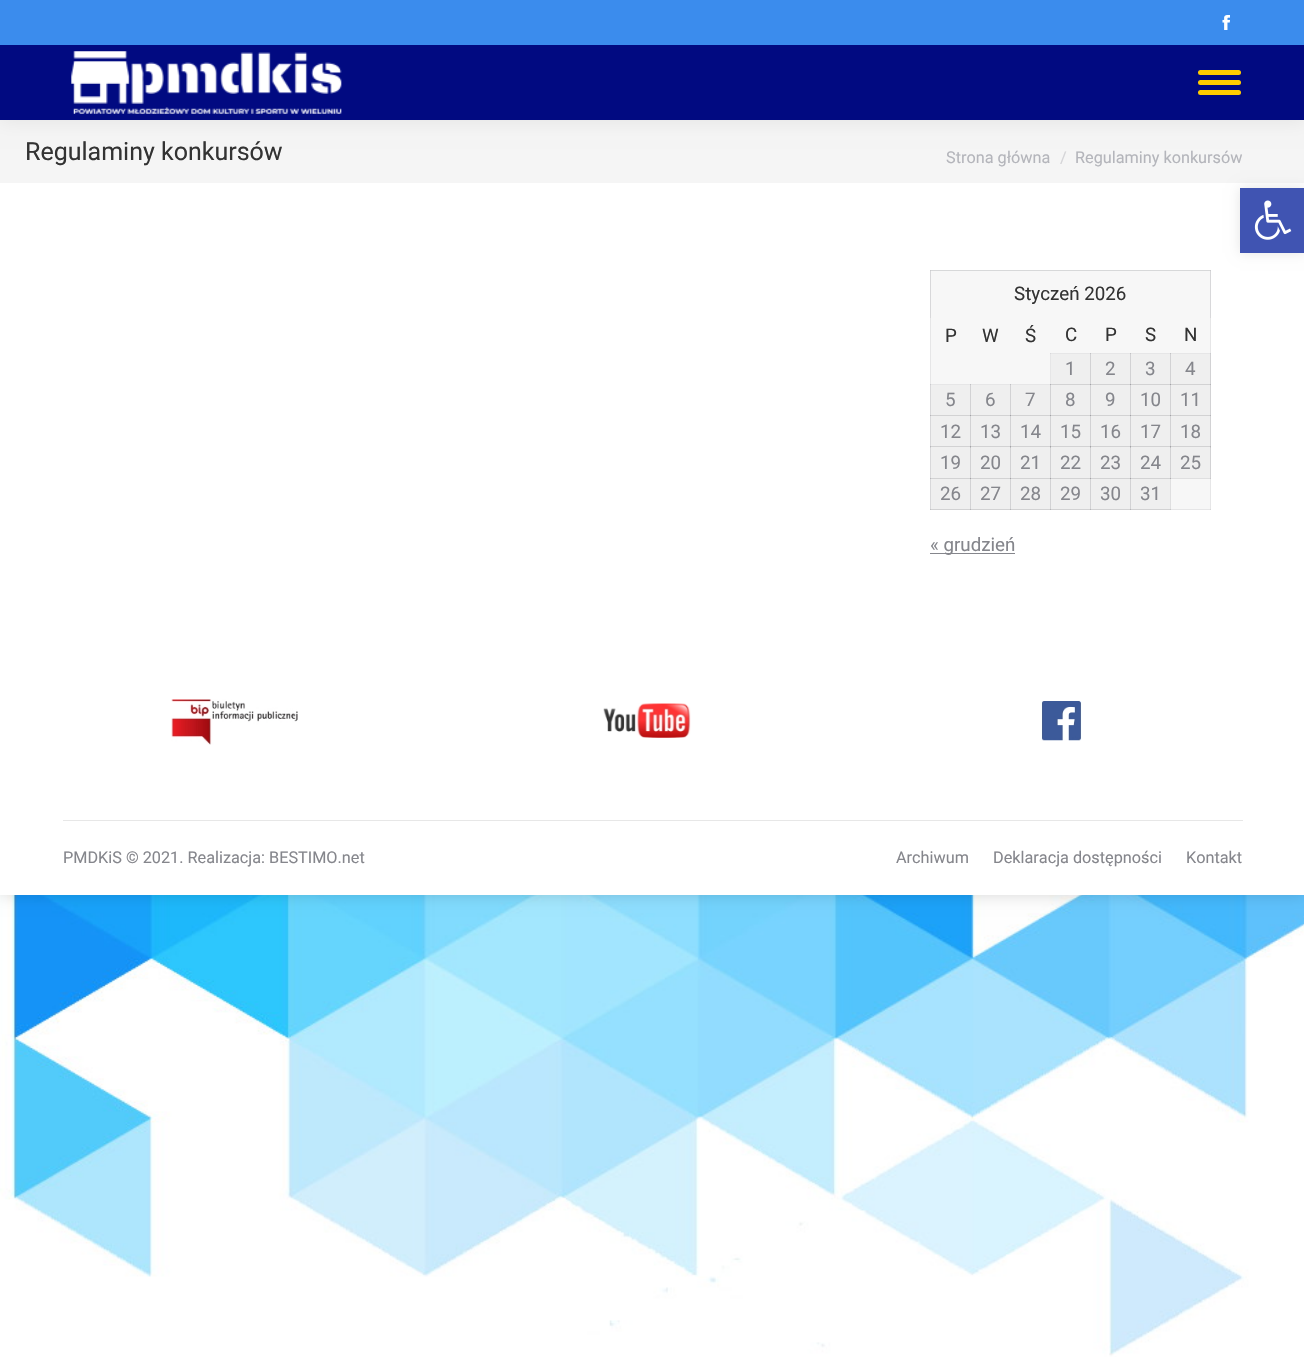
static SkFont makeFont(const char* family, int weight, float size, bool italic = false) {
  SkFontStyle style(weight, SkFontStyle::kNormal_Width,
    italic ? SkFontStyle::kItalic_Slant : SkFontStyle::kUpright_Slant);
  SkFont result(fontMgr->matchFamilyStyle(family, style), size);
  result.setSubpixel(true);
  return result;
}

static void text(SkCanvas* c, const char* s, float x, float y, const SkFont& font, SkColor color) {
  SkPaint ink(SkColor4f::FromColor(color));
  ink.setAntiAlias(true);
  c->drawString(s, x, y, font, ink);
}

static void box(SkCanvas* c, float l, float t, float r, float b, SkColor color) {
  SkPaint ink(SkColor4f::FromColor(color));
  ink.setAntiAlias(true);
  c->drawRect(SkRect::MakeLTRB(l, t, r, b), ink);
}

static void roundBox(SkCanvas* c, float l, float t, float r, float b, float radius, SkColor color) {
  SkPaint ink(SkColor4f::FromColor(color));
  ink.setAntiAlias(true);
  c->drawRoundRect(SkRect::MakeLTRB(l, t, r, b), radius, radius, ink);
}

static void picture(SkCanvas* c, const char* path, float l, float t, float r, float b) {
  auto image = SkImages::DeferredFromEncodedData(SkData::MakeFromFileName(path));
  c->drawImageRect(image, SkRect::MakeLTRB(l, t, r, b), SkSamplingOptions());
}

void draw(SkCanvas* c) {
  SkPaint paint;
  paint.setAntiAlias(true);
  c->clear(0xffffffff);
  picture(c, "img_01.png", 0, 895, 1304, 1357);
  paint.setColor(0x26000000);
  paint.setMaskFilter(SkMaskFilter::MakeBlur(kNormal_SkBlurStyle, 7.5f));
  c->drawRect(SkRect::MakeLTRB(0, 0, 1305, 895), paint);
  paint.setMaskFilter(nullptr);
  box(c, 0, 183, 1304, 895, 0xffffffff);
  box(c, 0, 120, 1304, 183, 0xfff5f5f5);
  paint.setColor(0x12000000);
  paint.setMaskFilter(SkMaskFilter::MakeBlur(kNormal_SkBlurStyle, 9.5f));
  c->drawRect(SkRect::MakeLTRB(-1, -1, 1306, 121), paint);
  paint.setMaskFilter(nullptr);
  box(c, 0, 45, 1304, 120, 0xff010a81);
  box(c, 0, 0, 1304, 45, 0xff3b8ced);
  picture(c, "img_02.png", 1222, 15, 1230, 30);
  picture(c, "img_03.png", 71, 51, 342, 114);
  roundBox(c, 1198, 70, 1241, 75, 2.5f, 0xffffcc00);
  roundBox(c, 1198, 80, 1241, 85, 2.5f, 0xffffcc00);
  roundBox(c, 1198, 90, 1241, 95, 2.5f, 0xffffcc00);
  SkFont face1 = makeFont("Roboto", 400, 25);
  text(c, "Regulaminy konkursów", 25, 160, face1, 0xff333333);
  SkFont face2 = makeFont("Roboto", 400, 16.25f);
  text(c, "Strona główna", 946, 163, face2, 0xffb4b5bb);
  text(c, "/", 1060, 163, face2, 0xffd5d5d8);
  text(c, "Regulaminy konkursów", 1075, 163, face2, 0xffb4b5bb);
  box(c, 930, 271, 1211, 510, 0xfff7f7f7);
  paint.setColor(0x2685868c);
  c->drawPath(SkPathBuilder().moveTo(1211, 270).lineTo(1211, 318).lineTo(1210, 318).lineTo(1210, 271).close().detach(), paint);
  c->drawPath(SkPathBuilder().moveTo(930, 318).lineTo(930, 270).lineTo(931, 271).lineTo(931, 318).close().detach(), paint);
  box(c, 930, 270, 1211, 271, 0xffd7d8d9);
  box(c, 1051, 354, 1211, 385, 0xffefefef);
  box(c, 931, 385, 1211, 416, 0xffefefef);
  box(c, 931, 416, 1211, 448, 0xffefefef);
  box(c, 1171, 448, 1211, 479, 0xffefefef);
  box(c, 1210, 270, 1211, 510, 0x2685868c);
  box(c, 931, 479, 1171, 510, 0xffefefef);
  box(c, 930, 509, 1211, 510, 0x2685868c);
  box(c, 930, 270, 931, 510, 0x2685868c);
  SkFont face3 = makeFont("Roboto", 400, 18.75f);
  text(c, "Styczeń 2026", 1014, 300, face3, 0xff333333);
  text(c, "P", 945, 342, face3, 0xff333333);
  text(c, "W", 982, 342, face3, 0xff333333);
  text(c, "Ś", 1025, 342, face3, 0xff333333);
  text(c, "C", 1065, 341, face3, 0xff333333);
  text(c, "P", 1105, 341, face3, 0xff333333);
  text(c, "S", 1145, 341, face3, 0xff333333);
  text(c, "N", 1184, 341, face3, 0xff333333);
  box(c, 1170, 353, 1211, 354, 0x2685868c);
  box(c, 1170, 384, 1211, 385, 0x2685868c);
  box(c, 1170, 415, 1211, 416, 0x2685868c);
  box(c, 1170, 446, 1211, 447, 0x2685868c);
  box(c, 1210, 446, 1211, 479, 0x2685868c);
  box(c, 1210, 415, 1211, 448, 0x2685868c);
  box(c, 1210, 384, 1211, 416, 0x2685868c);
  box(c, 1210, 353, 1211, 385, 0x2685868c);
  box(c, 1131, 448, 1171, 478, 0xffefefef);
  box(c, 931, 448, 1131, 479, 0xffefefef);
  box(c, 1130, 478, 1171, 479, 0xffdfdfe0);
  box(c, 1170, 478, 1171, 510, 0x2685868c);
  box(c, 1170, 478, 1211, 479, 0x2685868c);
  box(c, 1170, 446, 1171, 479, 0x2685868c);
  box(c, 1130, 446, 1171, 447, 0x2685868c);
  box(c, 1170, 446, 1171, 479, 0x2685868c);
  box(c, 1170, 446, 1211, 447, 0x2685868c);
  box(c, 1170, 415, 1171, 448, 0x2685868c);
  box(c, 1130, 415, 1171, 416, 0x2685868c);
  box(c, 1170, 415, 1171, 448, 0x2685868c);
  box(c, 1170, 415, 1211, 416, 0x2685868c);
  box(c, 1170, 384, 1171, 416, 0x2685868c);
  box(c, 1130, 384, 1171, 385, 0x2685868c);
  box(c, 1170, 384, 1171, 416, 0x2685868c);
  box(c, 1170, 384, 1211, 385, 0x2685868c);
  box(c, 1170, 353, 1171, 385, 0x2685868c);
  box(c, 1130, 353, 1171, 354, 0x2685868c);
  box(c, 1170, 353, 1171, 385, 0x2685868c);
  box(c, 1130, 509, 1171, 510, 0x2685868c);
  box(c, 1130, 478, 1131, 510, 0x2685868c);
  box(c, 1090, 478, 1131, 479, 0x2685868c);
  box(c, 1130, 478, 1131, 510, 0x2685868c);
  box(c, 1130, 478, 1171, 479, 0x2685868c);
  box(c, 1130, 446, 1131, 479, 0x2685868c);
  box(c, 1090, 446, 1131, 447, 0x2685868c);
  box(c, 1130, 446, 1131, 479, 0x2685868c);
  box(c, 1130, 446, 1171, 447, 0x2685868c);
  box(c, 1130, 415, 1131, 448, 0x2685868c);
  box(c, 1090, 415, 1131, 416, 0x2685868c);
  box(c, 1130, 415, 1131, 448, 0x2685868c);
  box(c, 1130, 415, 1171, 416, 0x2685868c);
  box(c, 1130, 384, 1131, 416, 0x2685868c);
  box(c, 1090, 384, 1131, 385, 0x2685868c);
  box(c, 1130, 384, 1131, 416, 0x2685868c);
  box(c, 1130, 384, 1171, 385, 0x2685868c);
  box(c, 1130, 353, 1131, 385, 0x2685868c);
  box(c, 1090, 353, 1131, 354, 0x2685868c);
  box(c, 1130, 353, 1131, 385, 0x2685868c);
  box(c, 1090, 509, 1131, 510, 0x2685868c);
  box(c, 1090, 478, 1091, 510, 0x2685868c);
  box(c, 1050, 478, 1091, 479, 0x2685868c);
  box(c, 1090, 478, 1091, 510, 0x2685868c);
  box(c, 1090, 478, 1131, 479, 0x2685868c);
  box(c, 1090, 446, 1091, 479, 0x2685868c);
  box(c, 1050, 446, 1091, 447, 0x2685868c);
  box(c, 1090, 446, 1091, 479, 0x2685868c);
  box(c, 1090, 446, 1131, 447, 0x2685868c);
  box(c, 1090, 415, 1091, 448, 0x2685868c);
  box(c, 1050, 415, 1091, 416, 0x2685868c);
  box(c, 1090, 415, 1091, 448, 0x2685868c);
  box(c, 1090, 415, 1131, 416, 0x2685868c);
  box(c, 1090, 384, 1091, 416, 0x2685868c);
  box(c, 1050, 384, 1091, 385, 0x2685868c);
  box(c, 1090, 384, 1091, 416, 0x2685868c);
  box(c, 1090, 384, 1131, 385, 0x2685868c);
  box(c, 1090, 353, 1091, 385, 0x2685868c);
  box(c, 1050, 353, 1091, 354, 0x2685868c);
  box(c, 1090, 353, 1091, 385, 0x2685868c);
  box(c, 1050, 509, 1091, 510, 0x2685868c);
  box(c, 1050, 478, 1051, 510, 0x2685868c);
  box(c, 1010, 478, 1051, 479, 0x2685868c);
  box(c, 1050, 478, 1051, 510, 0x2685868c);
  box(c, 1050, 478, 1091, 479, 0x2685868c);
  box(c, 1050, 446, 1051, 479, 0x2685868c);
  box(c, 1010, 446, 1051, 447, 0x2685868c);
  box(c, 1050, 446, 1051, 479, 0x2685868c);
  box(c, 1050, 446, 1091, 447, 0x2685868c);
  box(c, 1050, 415, 1051, 448, 0x2685868c);
  box(c, 1010, 415, 1051, 416, 0x2685868c);
  box(c, 1050, 415, 1051, 448, 0x2685868c);
  box(c, 1050, 415, 1091, 416, 0x2685868c);
  box(c, 1050, 384, 1051, 416, 0x2685868c);
  box(c, 1010, 384, 1051, 385, 0x2685868c);
  box(c, 1050, 384, 1051, 416, 0x2685868c);
  box(c, 1050, 384, 1091, 385, 0x2685868c);
  box(c, 1050, 353, 1051, 385, 0x2685868c);
  text(c, "1", 1065, 375, face3, 0xff85868c);
  text(c, "2", 1105, 375, face3, 0xff85868c);
  text(c, "3", 1145, 375, face3, 0xff85868c);
  text(c, "4", 1185, 375, face3, 0xff85868c);
  box(c, 1010, 509, 1051, 510, 0x2685868c);
  box(c, 1010, 478, 1011, 510, 0x2685868c);
  box(c, 970, 478, 1011, 479, 0x2685868c);
  box(c, 1010, 478, 1011, 510, 0x2685868c);
  box(c, 1010, 478, 1051, 479, 0x2685868c);
  box(c, 1010, 446, 1011, 479, 0x2685868c);
  box(c, 970, 446, 1011, 447, 0x2685868c);
  box(c, 1010, 446, 1011, 479, 0x2685868c);
  box(c, 1010, 446, 1051, 447, 0x2685868c);
  box(c, 1010, 415, 1011, 448, 0x2685868c);
  box(c, 970, 415, 1011, 416, 0x2685868c);
  box(c, 1010, 415, 1011, 448, 0x2685868c);
  box(c, 1010, 415, 1051, 416, 0x2685868c);
  box(c, 1010, 384, 1011, 416, 0x2685868c);
  box(c, 970, 384, 1011, 385, 0x2685868c);
  box(c, 1010, 384, 1011, 416, 0x2685868c);
  box(c, 970, 509, 1011, 510, 0x2685868c);
  box(c, 970, 478, 971, 510, 0x2685868c);
  box(c, 930, 478, 971, 479, 0x2685868c);
  box(c, 970, 478, 971, 510, 0x2685868c);
  box(c, 970, 478, 1011, 479, 0x2685868c);
  box(c, 970, 446, 971, 479, 0x2685868c);
  box(c, 930, 446, 971, 447, 0x2685868c);
  box(c, 970, 446, 971, 479, 0x2685868c);
  box(c, 970, 446, 1011, 447, 0x2685868c);
  box(c, 970, 415, 971, 448, 0x2685868c);
  box(c, 930, 415, 971, 416, 0x2685868c);
  box(c, 970, 415, 971, 448, 0x2685868c);
  box(c, 970, 415, 1011, 416, 0x2685868c);
  box(c, 970, 384, 971, 416, 0x2685868c);
  box(c, 930, 384, 971, 385, 0x2685868c);
  box(c, 970, 384, 971, 416, 0x2685868c);
  box(c, 930, 509, 971, 510, 0x2685868c);
  box(c, 930, 478, 931, 510, 0x2685868c);
  box(c, 930, 478, 971, 479, 0x2685868c);
  box(c, 930, 446, 931, 479, 0x2685868c);
  box(c, 930, 446, 971, 447, 0x2685868c);
  box(c, 930, 415, 931, 448, 0x2685868c);
  box(c, 930, 415, 971, 416, 0x2685868c);
  box(c, 930, 384, 931, 416, 0x2685868c);
  text(c, "5", 945, 406, face3, 0xff85868c);
  text(c, "6", 985, 406, face3, 0xff85868c);
  text(c, "7", 1025, 406, face3, 0xff85868c);
  text(c, "8", 1065, 406, face3, 0xff85868c);
  text(c, "9", 1105, 406, face3, 0xff85868c);
  text(c, "10", 1140, 406, face3, 0xff85868c);
  text(c, "11", 1180, 406, face3, 0xff85868c);
  text(c, "12", 940, 438, face3, 0xff85868c);
  text(c, "13", 980, 438, face3, 0xff85868c);
  text(c, "14", 1020, 438, face3, 0xff85868c);
  text(c, "15", 1060, 438, face3, 0xff85868c);
  text(c, "16", 1100, 438, face3, 0xff85868c);
  text(c, "17", 1140, 438, face3, 0xff85868c);
  text(c, "18", 1180, 438, face3, 0xff85868c);
  text(c, "19", 940, 469, face3, 0xff85868c);
  text(c, "20", 980, 469, face3, 0xff85868c);
  text(c, "21", 1020, 469, face3, 0xff85868c);
  text(c, "22", 1060, 469, face3, 0xff85868c);
  text(c, "23", 1100, 469, face3, 0xff85868c);
  text(c, "24", 1140, 469, face3, 0xff85868c);
  text(c, "25", 1180, 469, face3, 0xff85868c);
  text(c, "26", 940, 500, face3, 0xff85868c);
  text(c, "27", 980, 500, face3, 0xff85868c);
  text(c, "28", 1020, 500, face3, 0xff85868c);
  text(c, "29", 1060, 500, face3, 0xff85868c);
  text(c, "30", 1100, 500, face3, 0xff85868c);
  text(c, "31", 1140, 500, face3, 0xff85868c);
  box(c, 930, 553, 1015, 554, 0xff85868c);
  text(c, "« grudzień", 930, 551, face3, 0xff85868c);
  picture(c, "img_04.png", 171, 699, 298, 745);
  picture(c, "img_05.png", 603, 703, 691, 738);
  picture(c, "img_06.png", 1041, 701, 1082, 741);
  box(c, 63, 820, 1243, 821, 0xffe7e7e7);
  text(c, "PMDKiS © 2021. Realizacja: BESTIMO.net", 63, 863, face2, 0xff85868c);
  text(c, "Archiwum", 896, 863, face2, 0xff85868c);
  text(c, "Deklaracja dostępności", 993, 863, face2, 0xff85868c);
  text(c, "Kontakt", 1186, 863, face2, 0xff85868c);
  paint.setColor(0x1a000000);
  paint.setMaskFilter(SkMaskFilter::MakeBlur(kNormal_SkBlurStyle, 6));
  c->drawRect(SkRect::MakeLTRB(1240, 188, 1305, 253), paint);
  paint.setMaskFilter(nullptr);
  box(c, 1240, 188, 1304, 253, 0xff4054b2);
  picture(c, "img_07.png", 1254, 200, 1292, 240);
}
